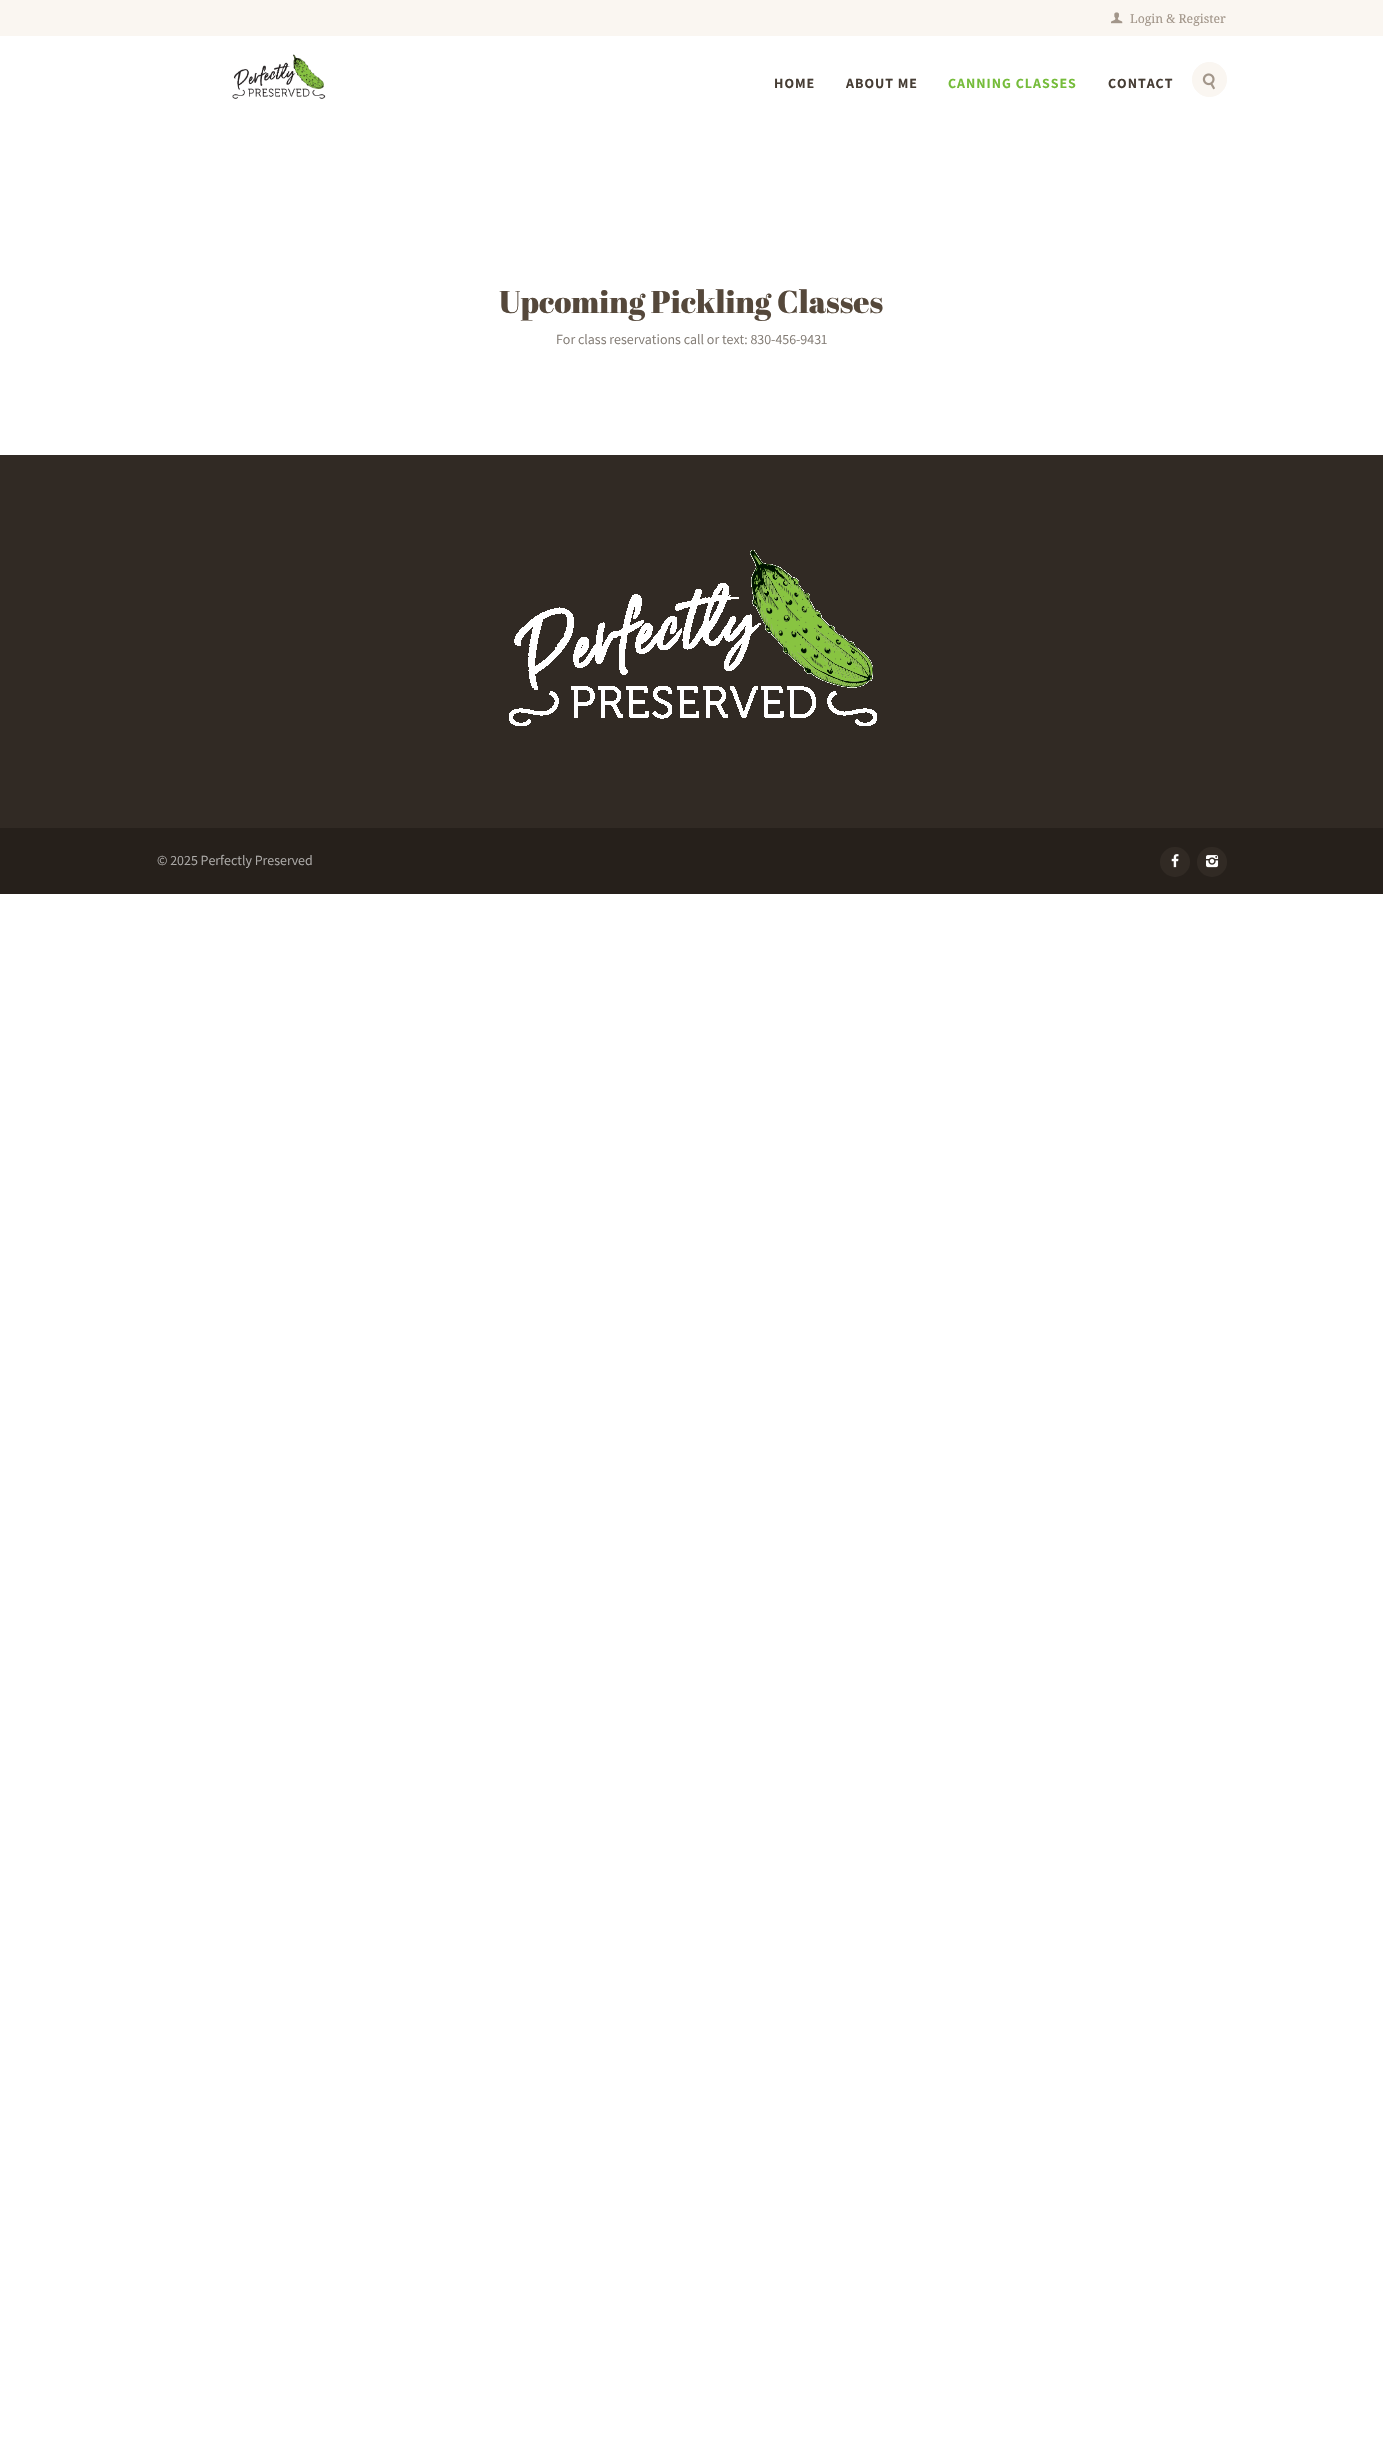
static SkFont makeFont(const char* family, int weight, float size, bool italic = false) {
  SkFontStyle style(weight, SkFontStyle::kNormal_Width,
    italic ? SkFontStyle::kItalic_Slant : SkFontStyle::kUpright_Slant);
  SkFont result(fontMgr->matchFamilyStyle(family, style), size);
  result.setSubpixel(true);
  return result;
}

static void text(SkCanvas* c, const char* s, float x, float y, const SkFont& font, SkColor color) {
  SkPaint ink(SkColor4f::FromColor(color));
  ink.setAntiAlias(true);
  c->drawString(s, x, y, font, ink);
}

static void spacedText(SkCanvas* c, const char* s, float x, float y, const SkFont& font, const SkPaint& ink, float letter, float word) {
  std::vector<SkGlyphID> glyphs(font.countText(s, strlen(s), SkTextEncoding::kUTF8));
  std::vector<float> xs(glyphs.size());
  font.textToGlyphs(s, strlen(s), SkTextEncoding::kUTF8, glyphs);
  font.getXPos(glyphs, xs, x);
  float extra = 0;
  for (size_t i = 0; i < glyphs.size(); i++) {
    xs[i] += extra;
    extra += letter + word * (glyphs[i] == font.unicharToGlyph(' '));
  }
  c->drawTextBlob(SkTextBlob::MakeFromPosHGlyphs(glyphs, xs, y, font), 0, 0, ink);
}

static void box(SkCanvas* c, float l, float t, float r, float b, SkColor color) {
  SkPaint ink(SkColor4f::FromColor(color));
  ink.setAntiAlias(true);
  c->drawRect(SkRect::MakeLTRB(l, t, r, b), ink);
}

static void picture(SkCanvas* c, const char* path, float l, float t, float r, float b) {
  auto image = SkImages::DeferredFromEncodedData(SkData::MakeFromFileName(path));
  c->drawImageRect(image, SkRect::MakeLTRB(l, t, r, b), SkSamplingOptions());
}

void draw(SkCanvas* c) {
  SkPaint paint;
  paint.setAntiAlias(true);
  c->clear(0xffffffff);
  box(c, 0, 0, 1383, 36, 0xfffaf6f1);
  picture(c, "img_01.png", 1111, 12, 1123, 24);
  SkFont face1 = makeFont("Noto Serif", 400, 12.25f);
  text(c, "Login & Register", 1130, 23, face1, 0xffa2968a);
  picture(c, "img_02.png", 232, 54, 326, 99);
  SkFont face2 = makeFont("Assistant", 700, 14);
  paint.setColor(0xff463d34);
  spacedText(c, "HOME", 774, 88, face2, paint, 1, 0);
  spacedText(c, "ABOUT ME", 846, 88, face2, paint, 1, 0);
  paint.setColor(0xff75bc3a);
  spacedText(c, "CANNING CLASSES", 948, 88, face2, paint, 1, 0);
  paint.setColor(0xff463d34);
  spacedText(c, "CONTACT", 1108, 88, face2, paint, 1, 0);
  paint.setColor(0xfffaf6f1);
  c->drawCircle(1209.5f, 79.5f, 17, paint);
  paint.setStyle(SkPaint::kStroke_Style);
  paint.setStrokeWidth(1);
  c->drawCircle(1209.5f, 79.5f, 17, paint);
  picture(c, "img_03.png", 1202, 73, 1215, 90);
  SkFont face3 = makeFont("Abril Fatface", 400, 31.5f);
  text(c, "Upcoming Pickling Classes", 499, 313, face3, 0xff55483b);
  SkFont face4 = makeFont("Assistant", 400, 14);
  text(c, "For class reservations call or text: 830-456-9431", 556, 344, face4, 0xff827b74);
  box(c, 0, 455, 1383, 828, 0xff312a24);
  picture(c, "img_04.png", 509, 550, 877, 726);
  box(c, 0, 828, 1383, 894, 0xff26201b);
  text(c, "© 2025 Perfectly Preserved", 157, 865, face4, 0xffafadab);
  paint.setStyle(SkPaint::kFill_Style);
  paint.setColor(0xff312a24);
  c->drawCircle(1175, 862, 15, paint);
  picture(c, "img_05.png", 1171, 854, 1179, 868);
  c->drawCircle(1212, 862, 15, paint);
  picture(c, "img_06.png", 1206, 855, 1219, 868);
}
